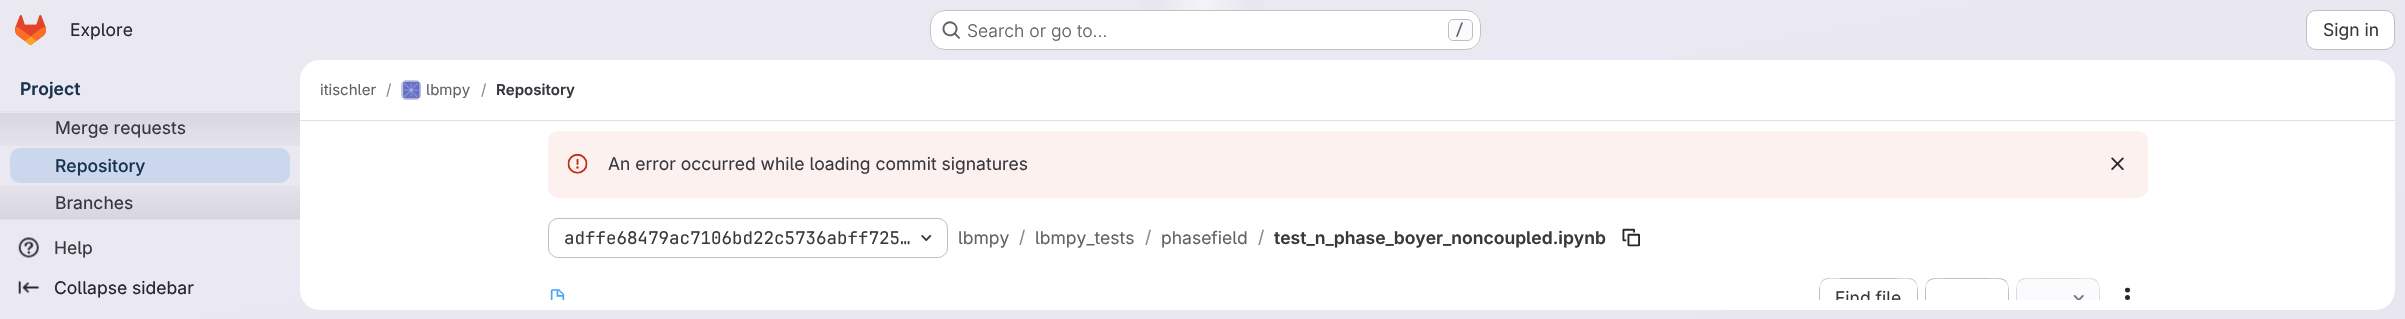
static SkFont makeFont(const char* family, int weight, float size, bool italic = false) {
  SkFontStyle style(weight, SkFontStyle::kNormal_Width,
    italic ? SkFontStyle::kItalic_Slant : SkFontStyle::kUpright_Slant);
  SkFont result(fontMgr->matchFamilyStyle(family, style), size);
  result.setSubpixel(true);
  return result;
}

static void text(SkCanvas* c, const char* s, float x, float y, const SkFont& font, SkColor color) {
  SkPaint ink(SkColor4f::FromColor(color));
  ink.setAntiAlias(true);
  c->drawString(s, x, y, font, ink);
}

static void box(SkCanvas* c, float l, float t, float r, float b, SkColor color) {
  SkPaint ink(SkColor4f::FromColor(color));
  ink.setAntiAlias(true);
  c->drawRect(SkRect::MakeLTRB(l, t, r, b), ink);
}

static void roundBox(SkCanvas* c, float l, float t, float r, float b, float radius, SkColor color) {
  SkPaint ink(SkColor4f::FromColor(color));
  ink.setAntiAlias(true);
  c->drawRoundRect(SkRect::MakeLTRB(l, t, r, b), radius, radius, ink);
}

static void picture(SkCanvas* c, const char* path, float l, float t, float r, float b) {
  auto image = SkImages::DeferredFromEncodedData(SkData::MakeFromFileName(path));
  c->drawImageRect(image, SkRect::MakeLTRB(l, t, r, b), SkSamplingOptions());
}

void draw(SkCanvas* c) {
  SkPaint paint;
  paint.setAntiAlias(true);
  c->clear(0xffffffff);
  {
    const SkColor colors[] = {0xffe8e6f0, 0xffeae9f2};
    const float stops[] = {0, 0.7f};
    const SkPoint ends[] = {{1266, 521}, {1139, -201}};
    paint.setShader(SkGradientShader::MakeLinear(ends, colors, stops, 2, SkTileMode::kClamp));
    paint.setAlpha(255);
  }
  c->drawRect(SkRect::MakeLTRB(0, 0, 2405, 319), paint);
  {
    const SkColor colors[] = {0xffe4e2ed, 0x00e4e2ed};
    const float stops[] = {0, 0.07f};
    SkMatrix m = SkMatrix::Translate(1203, 0).preScale(1203, 320);
    paint.setShader(SkGradientShader::MakeRadial({0, 0}, 1, colors, stops, 2, SkTileMode::kClamp, 0, &m));
    paint.setAlpha(255);
  }
  c->drawRect(SkRect::MakeLTRB(1142, 0, 1264, 10), paint);
  {
    const SkColor colors[] = {0xffe4e2ec, 0x00e4e2ec};
    const float stops[] = {0, 0.05f};
    SkMatrix m = SkMatrix::Translate(1203, 0).preScale(1203, 320);
    paint.setShader(SkGradientShader::MakeRadial({0, 0}, 1, colors, stops, 2, SkTileMode::kClamp, 0, &m));
    paint.setAlpha(255);
  }
  c->drawRect(SkRect::MakeLTRB(1188, 1, 1218, 6), paint);
  {
    const SkColor colors[] = {0x99ffffff, 0x00ffffff};
    const float stops[] = {0, 0.04f};
    paint.setShader(SkGradientShader::MakeRadial({1203, 0}, 1244, colors, stops, 2, SkTileMode::kClamp));
    paint.setAlpha(255);
  }
  c->drawRect(SkRect::MakeLTRB(1162, 0, 1244, 10), paint);
  picture(c, "img_01.png", 15, 15, 46, 45);
  SkFont face1 = makeFont("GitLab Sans", 400, 17.5f);
  text(c, "Explore", 70, 36, face1, 0xff28272d);
  roundBox(c, 930, 10, 1481, 50, 15, 0xffffffff);
  paint.setStyle(SkPaint::kStroke_Style);
  paint.setStrokeWidth(1);
  paint.setShader(nullptr);
  paint.setColor(0x3d050506);
  c->drawRoundRect(SkRect::MakeLTRB(930.5f, 10.5f, 1480.5f, 49.5f), 14.5f, 14.5f, paint);
  picture(c, "img_02.png", 942, 21, 960, 39);
  SkFont face2 = makeFont("GitLab Sans", 300, 17.5f);
  text(c, "Search or go to…", 967, 37, face2, 0xff626168);
  paint.setStyle(SkPaint::kFill_Style);
  paint.setColor(0xfffbfafd);
  c->drawRoundRect(SkRect::MakeLTRB(1448.5f, 19.5f, 1472.5f, 40.5f), 4.5f, 4.5f, paint);
  paint.setStyle(SkPaint::kStroke_Style);
  paint.setColor(0xffbfbfc3);
  c->drawRoundRect(SkRect::MakeLTRB(1448.5f, 19.5f, 1472.5f, 40.5f), 4.5f, 4.5f, paint);
  SkFont face3 = makeFont("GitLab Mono", 500, 15);
  text(c, "/", 1455, 35, face3, 0xff626168);
  paint.setStyle(SkPaint::kFill_Style);
  paint.setColor(0xffffffff);
  c->drawRoundRect(SkRect::MakeLTRB(2306.5f, 10.5f, 2394.5f, 49.5f), 9.5f, 9.5f, paint);
  paint.setStyle(SkPaint::kStroke_Style);
  paint.setColor(0xffbfbfc3);
  c->drawRoundRect(SkRect::MakeLTRB(2306.5f, 10.5f, 2394.5f, 49.5f), 9.5f, 9.5f, paint);
  text(c, "Sign in", 2323, 36, face1, 0xff3a383f);
  SkFont face4 = makeFont("GitLab Sans", 600, 17.5f);
  text(c, "Project", 20, 95, face4, 0xff18334e);
  box(c, 0, 111, 300, 112, 0xffe1dfec);
  box(c, 0, 219, 300, 220, 0xffe1dfec);
  paint.setStyle(SkPaint::kFill_Style);
  {
    const SkColor colors[] = {0x14050506, 0x00050506};
    const float stops[] = {0, 1};
    const SkPoint ends[] = {{150, 112}, {150, 158}};
    paint.setShader(SkGradientShader::MakeLinear(ends, colors, stops, 2, SkTileMode::kClamp));
    paint.setAlpha(255);
  }
  c->drawRect(SkRect::MakeLTRB(0, 113, 300, 146), paint);
  SkFont face5 = makeFont("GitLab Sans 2", 400, 17.5f);
  text(c, "Merge requests", 55, 134, face5, 0xff3a383f);
  roundBox(c, 10, 148, 290, 183, 10, 0xffcad7ec);
  SkFont face6 = makeFont("GitLab Sans", 500, 17.5f);
  text(c, "Repository", 55, 172, face6, 0xff18334e);
  text(c, "Branches", 55, 209, face5, 0xff3a383f);
  {
    const SkColor colors[] = {0x00050506, 0x14050506};
    const float stops[] = {0, 1};
    const SkPoint ends[] = {{150, 174}, {150, 219}};
    paint.setShader(SkGradientShader::MakeLinear(ends, colors, stops, 2, SkTileMode::kClamp));
    paint.setAlpha(255);
  }
  c->drawRect(SkRect::MakeLTRB(0, 186, 300, 219), paint);
  picture(c, "img_03.png", 18, 237, 39, 258);
  text(c, "Help", 54, 254, face5, 0xff3a383f);
  picture(c, "img_04.png", 18, 280, 39, 295);
  text(c, "Collapse sidebar", 54, 294, face5, 0xff28272d);
  roundBox(c, 300, 60, 2395, 310, 20, 0xffffffff);
  paint.setShader(nullptr);
  paint.setColor(0xffffffff);
  c->drawPath(SkPathBuilder().moveTo(320, 60).lineTo(2375, 60).cubicTo(2386, 60, 2395, 69, 2395, 80).lineTo(2395, 121).lineTo(300, 121).lineTo(300, 80).cubicTo(300, 69, 309, 60, 320, 60).close().detach(), paint);
  box(c, 300, 120, 2395, 121, 0xffe1dfec);
  SkFont face7 = makeFont("GitLab Sans", 400, 15);
  text(c, "itischler", 320, 95, face7, 0xff626168);
  text(c, "/", 386, 95, face7, 0xff89888d);
  paint.setStyle(SkPaint::kStroke_Style);
  paint.setColor(0xffdcdcde);
  c->drawRoundRect(SkRect::MakeLTRB(401.5f, 80.5f, 420.5f, 99.5f), 4.5f, 4.5f, paint);
  picture(c, "img_05.png", 402, 81, 421, 99);
  paint.setColor(0x14050506);
  c->drawRoundRect(SkRect::MakeLTRB(401.5f, 80.5f, 420.5f, 99.5f), 4.5f, 4.5f, paint);
  text(c, "lbmpy", 426, 95, face7, 0xff626168);
  text(c, "/", 481, 95, face7, 0xff89888d);
  SkFont face8 = makeFont("GitLab Sans", 600, 15);
  text(c, "Repository", 496, 95, face8, 0xff3a383f);
  roundBox(c, 548, 131, 2148, 198, 10, 0xfffcf1ef);
  picture(c, "img_06.png", 567, 153, 588, 174);
  text(c, "An error occurred while loading commit signatures", 608, 170, face1, 0xff3a383f);
  picture(c, "img_07.png", 2111, 157, 2124, 170);
  paint.setColor(0xffbfbfc3);
  c->drawRoundRect(SkRect::MakeLTRB(548.5f, 218.5f, 947.5f, 257.5f), 9.5f, 9.5f, paint);
  SkFont face9 = makeFont("GitLab Mono", 400, 17.5f);
  text(c, "adffe68479ac7106bd22c5736abff725…", 564, 244, face9, 0xff3a383f);
  picture(c, "img_08.png", 921, 235, 932, 241);
  text(c, "lbmpy", 958, 244, face1, 0xff626168);
  text(c, "/", 1019, 243, face1, 0xff89888d);
  text(c, "lbmpy_tests", 1035, 244, face1, 0xff626168);
  text(c, "/", 1145, 243, face1, 0xff89888d);
  text(c, "phasefield", 1161, 244, face1, 0xff626168);
  text(c, "/", 1258, 243, face1, 0xff89888d);
  text(c, "test_n_phase_boyer_noncoupled.ipynb", 1274, 244, face4, 0xff3a383f);
  picture(c, "img_09.png", 1622, 228, 1640, 247);
  picture(c, "img_10.png", 550, 289, 565, 300);
  c->save();
  c->clipRect(SkRect::MakeLTRB(300, 121, 2395, 300));
  paint.setStyle(SkPaint::kFill_Style);
  c->drawPath(SkPathBuilder().moveTo(1829, 278).cubicTo(1818, 278, 1819, 290, 1819, 298).lineTo(1819, 310).lineTo(1820, 310).lineTo(1820, 286).cubicTo(1822, 276, 1836, 279, 1842, 279).lineTo(1895, 279).cubicTo(1901, 279, 1915, 276, 1917, 286).lineTo(1917, 310).lineTo(1918, 310).lineTo(1918, 298).cubicTo(1918, 290, 1919, 278, 1908, 278).close().detach(), paint);
  c->restore();
  c->save();
  c->clipRect(SkRect::MakeLTRB(1835, 286, 1901, 300));
  text(c, "Find file", 1835, 304, face1, 0xff3a383f);
  c->restore();
  c->save();
  c->clipRect(SkRect::MakeLTRB(300, 121, 2395, 300));
  c->drawPath(SkPathBuilder().moveTo(1935, 278).cubicTo(1924, 278, 1925, 290, 1925, 298).lineTo(1925, 310).lineTo(1926, 310).lineTo(1926, 286).cubicTo(1928, 277, 1939, 279, 1946, 279).lineTo(1988, 279).cubicTo(1995, 279, 2006, 277, 2008, 286).lineTo(2008, 310).lineTo(2009, 310).lineTo(2009, 298).cubicTo(2009, 290, 2010, 278, 1999, 278).close().detach(), paint);
  c->restore();
  paint.setColor(0xfffbfafd);
  c->drawPath(SkPathBuilder().moveTo(2026, 278).lineTo(2090, 278).cubicTo(2095.5f, 278, 2100, 282.5f, 2100, 288).lineTo(2100, 300).lineTo(2016, 300).lineTo(2016, 288).cubicTo(2016, 282.5f, 2020.5f, 278, 2026, 278).close().detach(), paint);
  c->save();
  c->clipRect(SkRect::MakeLTRB(300, 121, 2395, 300));
  paint.setColor(0xffdcdcde);
  c->drawPath(SkPathBuilder().moveTo(2026, 278).cubicTo(2015, 278, 2016, 290, 2016, 298).lineTo(2016, 310).lineTo(2017, 310).lineTo(2017, 286).cubicTo(2019, 277, 2030, 279, 2037, 279).lineTo(2079, 279).cubicTo(2086, 279, 2097, 277, 2099, 286).lineTo(2099, 310).lineTo(2100, 310).lineTo(2100, 298).cubicTo(2100, 290, 2101, 278, 2090, 278).close().detach(), paint);
  c->restore();
  picture(c, "img_11.png", 2073, 295, 2084, 300);
  picture(c, "img_12.png", 2125, 287, 2130, 300);
}
